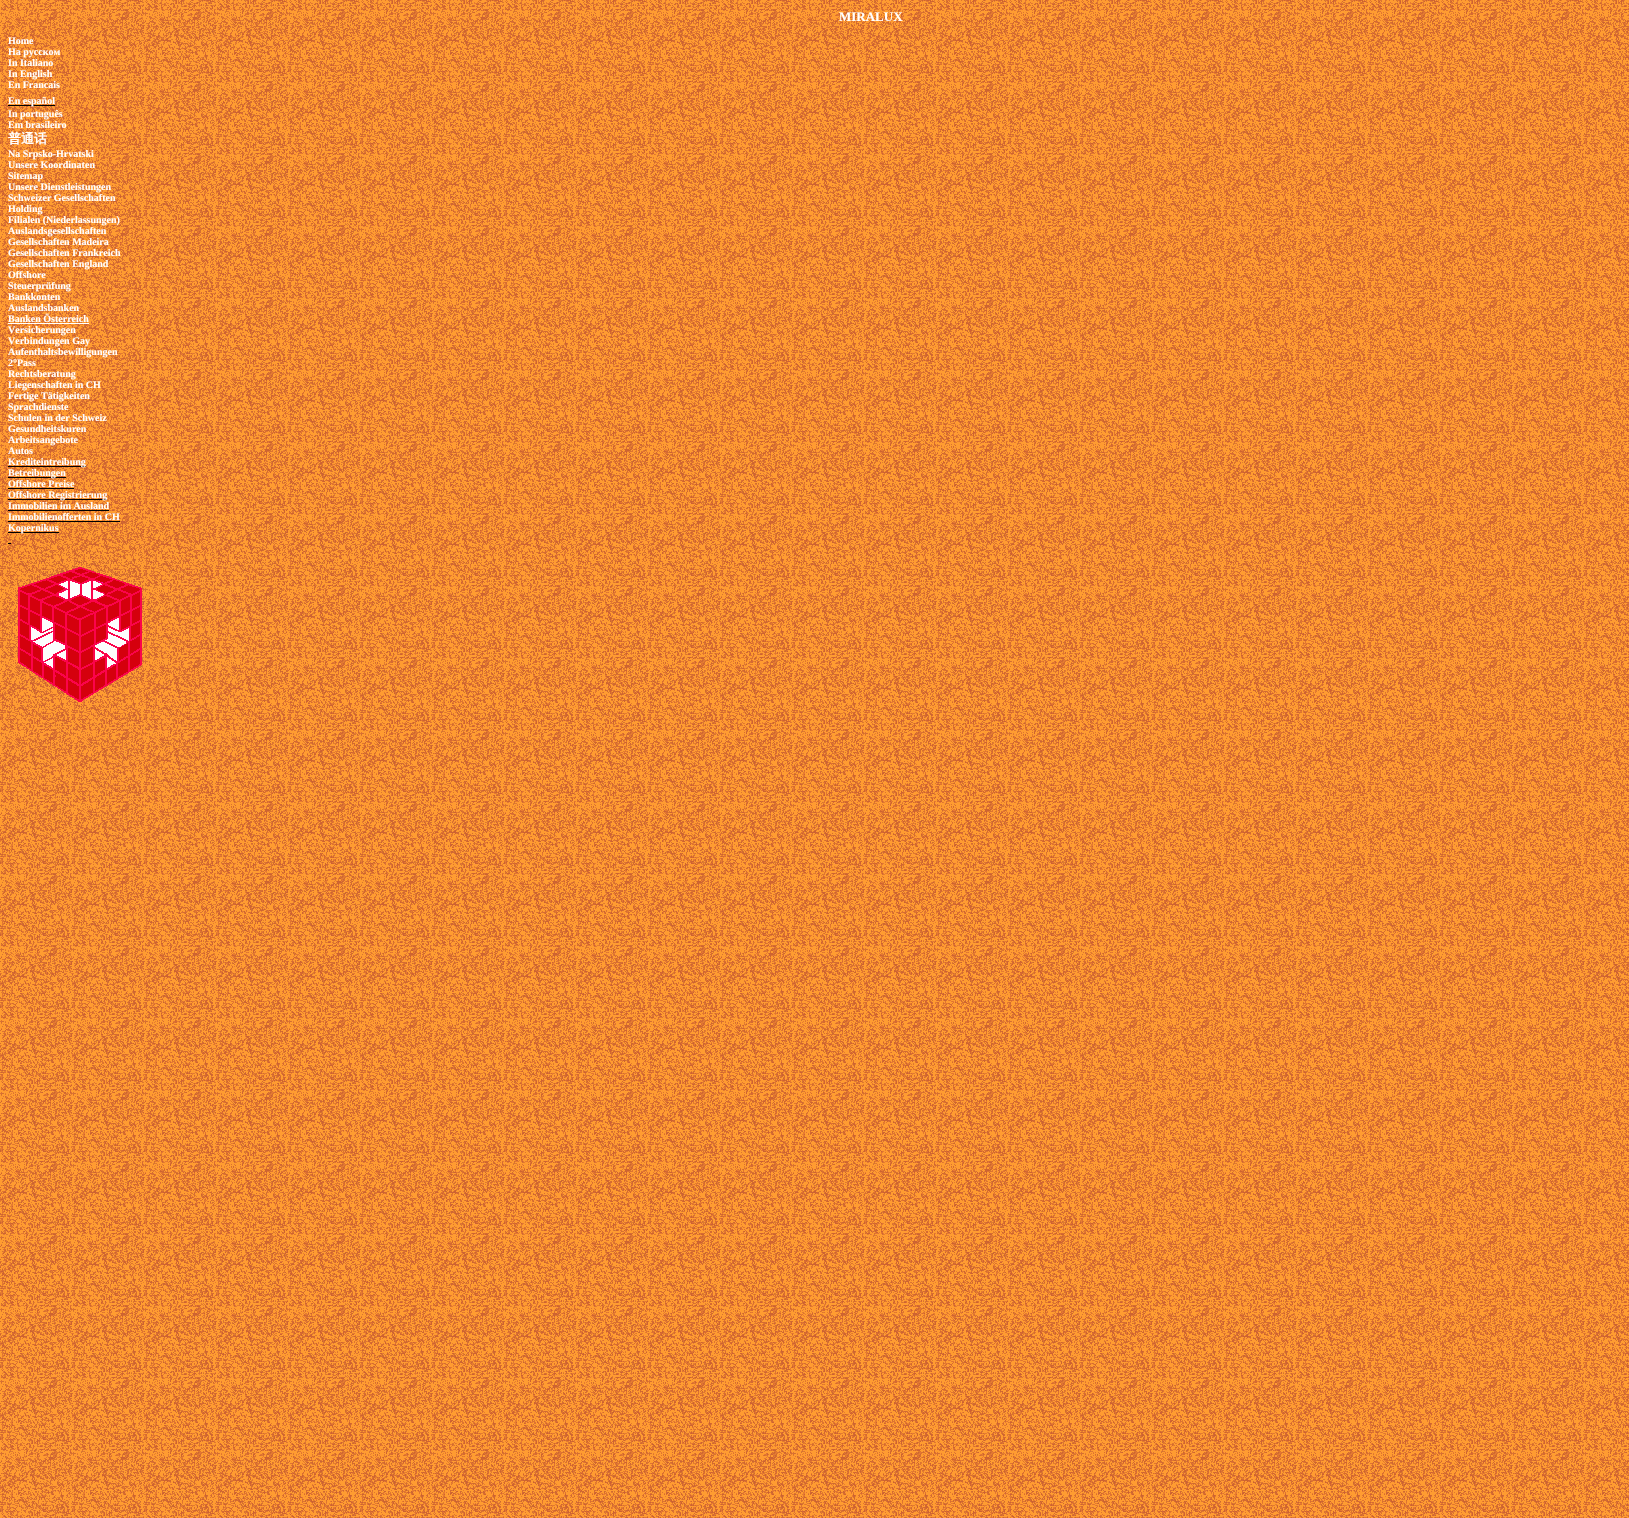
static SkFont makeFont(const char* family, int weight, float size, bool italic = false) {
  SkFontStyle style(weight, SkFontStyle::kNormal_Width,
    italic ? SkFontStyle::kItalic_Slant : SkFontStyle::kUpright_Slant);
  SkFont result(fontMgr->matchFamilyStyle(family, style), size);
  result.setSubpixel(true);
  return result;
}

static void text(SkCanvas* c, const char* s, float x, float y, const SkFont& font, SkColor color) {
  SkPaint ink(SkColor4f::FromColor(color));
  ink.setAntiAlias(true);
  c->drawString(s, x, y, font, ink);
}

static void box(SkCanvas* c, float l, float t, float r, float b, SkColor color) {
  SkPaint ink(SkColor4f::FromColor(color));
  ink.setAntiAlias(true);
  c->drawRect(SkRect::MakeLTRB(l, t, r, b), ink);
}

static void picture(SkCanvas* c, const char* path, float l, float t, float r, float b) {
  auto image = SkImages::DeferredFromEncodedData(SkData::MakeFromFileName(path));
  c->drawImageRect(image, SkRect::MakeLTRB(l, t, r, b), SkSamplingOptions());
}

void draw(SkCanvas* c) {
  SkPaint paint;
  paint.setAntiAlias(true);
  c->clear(0xffffffff);
  picture(c, "img_01.png", 0, 0, 1629, 1518);
  SkFont face1 = makeFont("Liberation Serif", 700, 13);
  text(c, "MIRALUX", 839, 21, face1, 0xffffffff);
  SkFont face2 = makeFont("Liberation Serif", 700, 10);
  text(c, "Home", 8, 44, face2, 0xffffffff);
  text(c, "На русском", 8, 55, face2, 0xffffffff);
  text(c, "In Italiano", 8, 66, face2, 0xffffffff);
  text(c, "In English", 8, 77, face2, 0xffffffff);
  text(c, "En Francais", 8, 88, face2, 0xffffffff);
  box(c, 8, 105, 55, 106, 0xff000000);
  text(c, "En español", 8, 104, face2, 0xffffffff);
  text(c, "In português", 8, 117, face2, 0xffffffff);
  text(c, "Em brasileiro", 8, 128, face2, 0xffffffff);
  SkFont face3 = makeFont("WenQuanYi Zen Hei", 700, 13);
  text(c, "普通话", 8, 143, face3, 0xffffffff);
  text(c, "Na Srpsko-Hrvatski", 8, 157, face2, 0xffffffff);
  text(c, "Unsere Koordinaten", 8, 168, face2, 0xffffffff);
  text(c, "Sitemap", 8, 179, face2, 0xffffffff);
  text(c, "Unsere Dienstleistungen", 8, 190, face2, 0xffffffff);
  text(c, "Schweizer Gesellschaften", 8, 201, face2, 0xffffffff);
  text(c, "Holding", 8, 212, face2, 0xffffffff);
  text(c, "Filialen (Niederlassungen)", 8, 223, face2, 0xffffffff);
  text(c, "Auslandsgesellschaften", 8, 234, face2, 0xffffffff);
  text(c, "Gesellschaften Madeira", 8, 245, face2, 0xffffffff);
  text(c, "Gesellschaften Frankreich", 8, 256, face2, 0xffffffff);
  text(c, "Gesellschaften England", 8, 267, face2, 0xffffffff);
  text(c, "Offshore", 8, 278, face2, 0xffffffff);
  text(c, "Steuerprüfung", 8, 289, face2, 0xffffffff);
  text(c, "Bankkonten", 8, 300, face2, 0xffffffff);
  text(c, "Auslandsbanken", 8, 311, face2, 0xffffffff);
  text(c, "Banken Österreich", 8, 322, face2, 0xffffffff);
  box(c, 8, 323, 89, 324, 0xffffffff);
  text(c, "Versicherungen", 8, 333, face2, 0xffffffff);
  text(c, "Verbindungen Gay", 8, 344, face2, 0xffffffff);
  text(c, "Aufenthaltsbewilligungen", 8, 355, face2, 0xffffffff);
  text(c, "2°Pass", 8, 366, face2, 0xffffffff);
  text(c, "Rechtsberatung", 8, 377, face2, 0xffffffff);
  text(c, "Liegenschaften in CH", 8, 388, face2, 0xffffffff);
  text(c, "Fertige Tätigkeiten", 8, 399, face2, 0xffffffff);
  text(c, "Sprachdienste", 8, 410, face2, 0xffffffff);
  text(c, "Schulen in der Schweiz", 8, 421, face2, 0xffffffff);
  text(c, "Gesundheitskuren", 8, 432, face2, 0xffffffff);
  text(c, "Arbeitsangebote", 8, 443, face2, 0xffffffff);
  text(c, "Autos", 8, 454, face2, 0xffffffff);
  box(c, 8, 466, 86, 467, 0xff000000);
  text(c, "Krediteintreibung", 8, 465, face2, 0xffffffff);
  box(c, 8, 477, 66, 478, 0xff000000);
  text(c, "Betreibungen", 8, 476, face2, 0xffffffff);
  text(c, "Offshore Preise", 8, 487, face2, 0xffffffff);
  box(c, 8, 488, 74, 489, 0xff000000);
  box(c, 8, 499, 107, 500, 0xff000000);
  text(c, "Offshore Registrierung", 8, 498, face2, 0xffffffff);
  text(c, "Immobilien im Ausland", 8, 509, face2, 0xffffffff);
  box(c, 8, 510, 109, 511, 0xff000000);
  text(c, "Immobilienofferten in CH", 8, 520, face2, 0xffffffff);
  box(c, 8, 521, 120, 522, 0xff000000);
  box(c, 8, 532, 59, 533, 0xff000000);
  text(c, "Kopernikus", 8, 531, face2, 0xffffffff);
  box(c, 8, 543, 11, 544, 0xff000000);
  picture(c, "img_02.png", 18, 567, 142, 702);
}
